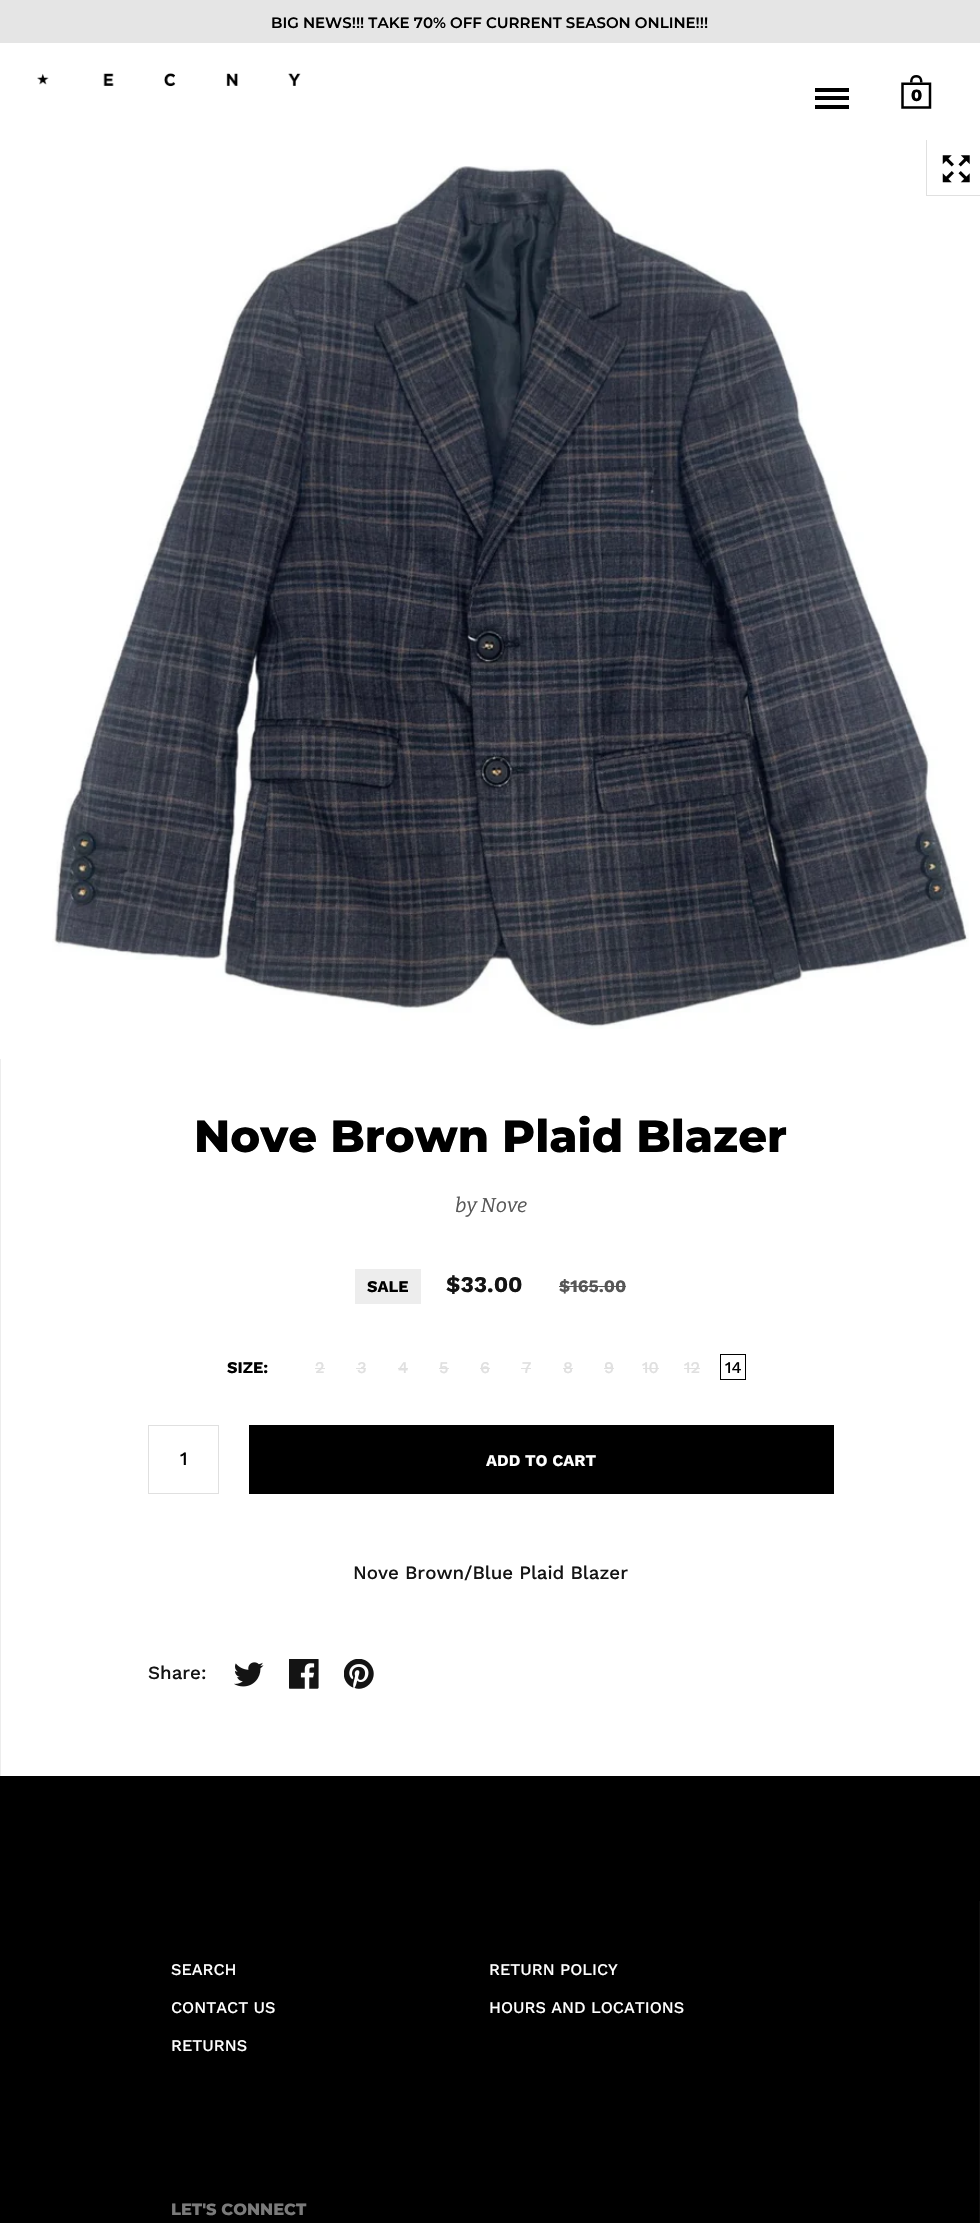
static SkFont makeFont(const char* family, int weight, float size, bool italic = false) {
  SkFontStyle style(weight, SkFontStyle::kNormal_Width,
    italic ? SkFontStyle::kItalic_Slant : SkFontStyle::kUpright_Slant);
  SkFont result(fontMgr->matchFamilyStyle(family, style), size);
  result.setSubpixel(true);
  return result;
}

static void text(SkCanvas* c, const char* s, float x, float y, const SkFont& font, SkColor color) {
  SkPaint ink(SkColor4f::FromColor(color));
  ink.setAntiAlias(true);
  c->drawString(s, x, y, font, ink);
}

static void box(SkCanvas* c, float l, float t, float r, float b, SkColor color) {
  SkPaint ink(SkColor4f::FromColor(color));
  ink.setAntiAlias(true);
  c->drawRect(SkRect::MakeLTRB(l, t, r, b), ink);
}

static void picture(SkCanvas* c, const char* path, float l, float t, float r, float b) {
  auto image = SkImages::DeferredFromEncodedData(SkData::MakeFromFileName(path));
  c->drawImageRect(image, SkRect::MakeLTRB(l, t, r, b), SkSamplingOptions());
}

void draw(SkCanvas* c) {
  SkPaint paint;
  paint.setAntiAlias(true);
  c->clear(0xffffffff);
  box(c, 0, 0, 980, 43, 0x1a000000);
  SkFont face1 = makeFont("Montserrat", 600, 15);
  text(c, "BIG NEWS!!! TAKE 70% OFF CURRENT SEASON ONLINE!!!", 271, 28, face1, 0xff000000);
  picture(c, "img_01.png", 37, 73, 301, 87);
  box(c, 815, 96, 849, 100, 0xff000000);
  box(c, 815, 88, 849, 92, 0xff000000);
  box(c, 815, 105, 849, 109, 0xff000000);
  picture(c, "img_02.png", 901, 75, 932, 109);
  SkFont face2 = makeFont("Montserrat", 800, 16.25f);
  text(c, "0", 911, 101, face2, 0xff000000);
  picture(c, "img_04.png", 52, 166, 969, 1029);
  c->save();
  c->clipRect(SkRect::MakeLTRB(0, 140, 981, 1059));
  paint.setStyle(SkPaint::kStroke_Style);
  paint.setStrokeWidth(1);
  paint.setColor(0xffe0e0e0);
  c->drawRect(SkRect::MakeLTRB(926.5f, 139.5f, 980.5f, 195.5f), paint);
  c->restore();
  picture(c, "img_03.png", 942, 155, 970, 183);
  box(c, 0, 1059, 1, 1778, 0xffededed);
  SkFont face3 = makeFont("Montserrat", 800, 45);
  text(c, "Nove Brown Plaid Blazer", 194, 1152, face3, 0xff000000);
  SkFont face4 = makeFont("Bitter", 400, 20, true);
  text(c, "by Nove", 455, 1212, face4, 0xff575757);
  box(c, 355, 1269, 421, 1304, 0xffededed);
  SkFont face5 = makeFont("Work Sans", 700, 16.25f);
  text(c, "SALE", 367, 1292, face5, 0xff000000);
  SkFont face6 = makeFont("Work Sans", 700, 22.5f);
  text(c, "$33.00", 446, 1292, face6, 0xff141414);
  SkFont face7 = makeFont("Work Sans", 700, 17.5f);
  text(c, "$165.00", 559, 1292, face7, 0xff575757);
  box(c, 559, 1286, 626, 1287, 0xff575757);
  text(c, "SIZE:", 227, 1373, face5, 0xff000000);
  SkFont face8 = makeFont("Work Sans", 500, 16.25f);
  text(c, "2", 315, 1373, face8, 0xffe0e0e0);
  box(c, 315, 1368, 325, 1369, 0xffe0e0e0);
  text(c, "3", 357, 1373, face8, 0xffe0e0e0);
  box(c, 356, 1368, 366, 1369, 0xffe0e0e0);
  text(c, "4", 398, 1373, face8, 0xffe0e0e0);
  box(c, 398, 1368, 408, 1369, 0xffe0e0e0);
  text(c, "5", 439, 1373, face8, 0xffe0e0e0);
  box(c, 439, 1368, 449, 1369, 0xffe0e0e0);
  text(c, "6", 480, 1373, face8, 0xffe0e0e0);
  box(c, 480, 1368, 490, 1369, 0xffe0e0e0);
  text(c, "7", 522, 1373, face8, 0xffe0e0e0);
  box(c, 521, 1368, 531, 1369, 0xffe0e0e0);
  text(c, "8", 563, 1373, face8, 0xffe0e0e0);
  box(c, 563, 1368, 573, 1369, 0xffe0e0e0);
  text(c, "9", 604, 1373, face8, 0xffe0e0e0);
  box(c, 604, 1368, 614, 1369, 0xffe0e0e0);
  text(c, "10", 642, 1373, face8, 0xffe0e0e0);
  box(c, 643, 1368, 659, 1369, 0xffe0e0e0);
  text(c, "12", 684, 1373, face8, 0xffe0e0e0);
  box(c, 684, 1368, 700, 1369, 0xffe0e0e0);
  paint.setColor(0xff000000);
  c->drawRect(SkRect::MakeLTRB(720.5f, 1354.5f, 745.5f, 1379.5f), paint);
  text(c, "14", 725, 1373, face8, 0xff000000);
  paint.setColor(0xffe0e0e0);
  c->drawRect(SkRect::MakeLTRB(148.5f, 1425.5f, 218.5f, 1493.5f), paint);
  SkFont face9 = makeFont("Work Sans", 500, 18.75f);
  text(c, "1", 180, 1465, face9, 0xff000000);
  box(c, 249, 1425, 834, 1494, 0xff000000);
  text(c, "ADD TO CART", 486, 1466, face5, 0xffffffff);
  text(c, "Nove Brown/Blue Plaid Blazer", 353, 1579, face9, 0xff141414);
  text(c, "Share:", 148, 1679, face9, 0xff141414);
  picture(c, "img_05.png", 234, 1662, 264, 1687);
  picture(c, "img_06.png", 289, 1659, 319, 1689);
  picture(c, "img_07.png", 344, 1659, 374, 1689);
  box(c, 0, 1776, 980, 2223, 0xff000000);
  box(c, 979, 1901, 980, 2223, 0xff0d0d0d);
  text(c, "SEARCH", 171, 1975, face8, 0xffffffff);
  text(c, "RETURN POLICY", 489, 1975, face8, 0xffffffff);
  text(c, "CONTACT US", 171, 2013, face8, 0xffffffff);
  text(c, "HOURS AND LOCATIONS", 489, 2013, face8, 0xffffffff);
  text(c, "RETURNS", 171, 2051, face8, 0xffffffff);
  text(c, "LET'S CONNECT", 171, 2215, face2, 0xff7a7a7a);
}
